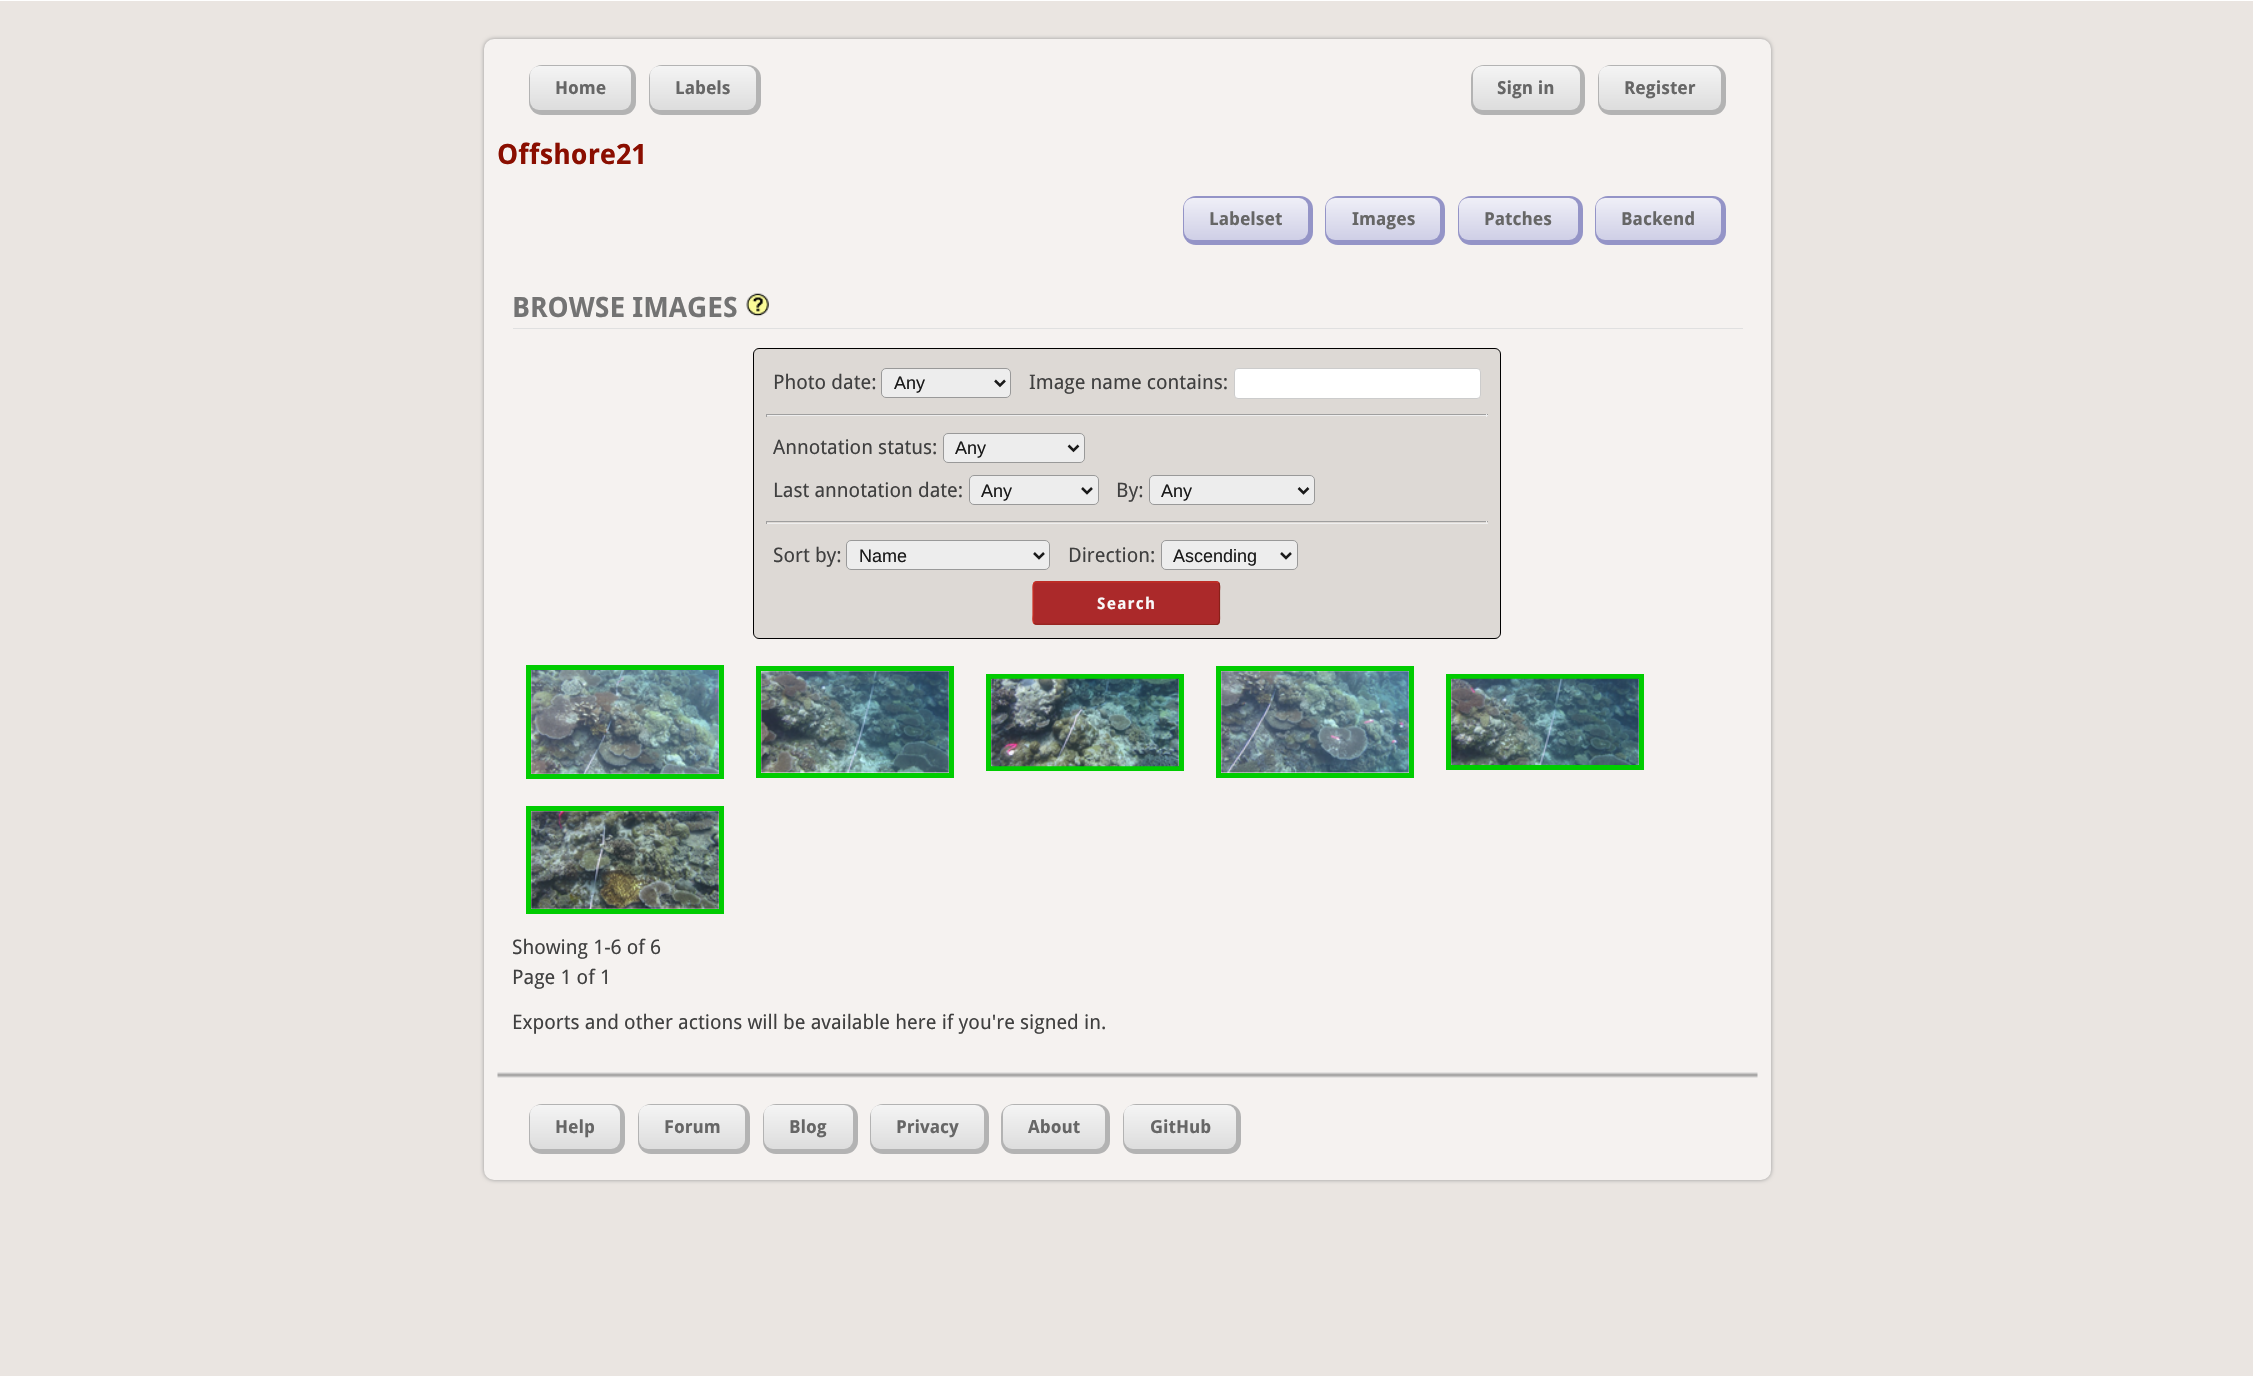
static SkFont makeFont(const char* family, int weight, float size, bool italic = false) {
  SkFontStyle style(weight, SkFontStyle::kNormal_Width,
    italic ? SkFontStyle::kItalic_Slant : SkFontStyle::kUpright_Slant);
  SkFont result(fontMgr->matchFamilyStyle(family, style), size);
  result.setSubpixel(true);
  return result;
}

static void text(SkCanvas* c, const char* s, float x, float y, const SkFont& font, SkColor color) {
  SkPaint ink(SkColor4f::FromColor(color));
  ink.setAntiAlias(true);
  c->drawString(s, x, y, font, ink);
}

static void spacedText(SkCanvas* c, const char* s, float x, float y, const SkFont& font, const SkPaint& ink, float letter, float word) {
  std::vector<SkGlyphID> glyphs(font.countText(s, strlen(s), SkTextEncoding::kUTF8));
  std::vector<float> xs(glyphs.size());
  font.textToGlyphs(s, strlen(s), SkTextEncoding::kUTF8, glyphs);
  font.getXPos(glyphs, xs, x);
  float extra = 0;
  for (size_t i = 0; i < glyphs.size(); i++) {
    xs[i] += extra;
    extra += letter + word * (glyphs[i] == font.unicharToGlyph(' '));
  }
  c->drawTextBlob(SkTextBlob::MakeFromPosHGlyphs(glyphs, xs, y, font), 0, 0, ink);
}

static void box(SkCanvas* c, float l, float t, float r, float b, SkColor color) {
  SkPaint ink(SkColor4f::FromColor(color));
  ink.setAntiAlias(true);
  c->drawRect(SkRect::MakeLTRB(l, t, r, b), ink);
}

static void roundBox(SkCanvas* c, float l, float t, float r, float b, float radius, SkColor color) {
  SkPaint ink(SkColor4f::FromColor(color));
  ink.setAntiAlias(true);
  c->drawRoundRect(SkRect::MakeLTRB(l, t, r, b), radius, radius, ink);
}

static void picture(SkCanvas* c, const char* path, float l, float t, float r, float b) {
  auto image = SkImages::DeferredFromEncodedData(SkData::MakeFromFileName(path));
  c->drawImageRect(image, SkRect::MakeLTRB(l, t, r, b), SkSamplingOptions());
}

void draw(SkCanvas* c) {
  SkPaint paint;
  paint.setAntiAlias(true);
  c->clear(0xffeae5e1);
  box(c, 0, 0, 2253, 1, 0xffffffff);
  paint.setColor(0xff999999);
  paint.setMaskFilter(SkMaskFilter::MakeBlur(kNormal_SkBlurStyle, 2));
  c->drawRoundRect(SkRect::MakeLTRB(484, 39, 1771, 1180), 10, 10, paint);
  paint.setMaskFilter(nullptr);
  roundBox(c, 484, 39, 1771, 1180, 10, 0xfff5f2f0);
  roundBox(c, 529, 65, 636, 115, 13, 0xffb3b3b3);
  {
    const SkColor colors[] = {0xd9ffffff, 0x8cffffff};
    const float stops[] = {0, 1};
    const SkPoint ends[] = {{581, 66}, {581, 110}};
    paint.setShader(SkGradientShader::MakeLinear(ends, colors, stops, 2, SkTileMode::kClamp));
    paint.setAlpha(255);
  }
  c->drawRoundRect(SkRect::MakeLTRB(530, 66, 631, 110), 9, 9, paint);
  SkFont face1 = makeFont("Droid Sans", 700, 18);
  text(c, "Home", 555, 94, face1, 0xff666666);
  roundBox(c, 649, 65, 761, 115, 13, 0xffb3b3b3);
  {
    const SkColor colors[] = {0xd9ffffff, 0x8cffffff};
    const float stops[] = {0, 1};
    const SkPoint ends[] = {{703, 66}, {703, 110}};
    paint.setShader(SkGradientShader::MakeLinear(ends, colors, stops, 2, SkTileMode::kClamp));
    paint.setAlpha(255);
  }
  c->drawRoundRect(SkRect::MakeLTRB(650, 66, 756, 110), 9, 9, paint);
  text(c, "Labels", 675, 94, face1, 0xff666666);
  roundBox(c, 1471, 65, 1585, 115, 13, 0xffb3b3b3);
  {
    const SkColor colors[] = {0xfff4f4f4, 0xffdddddd};
    const float stops[] = {0, 1};
    const SkPoint ends[] = {{1526, 66}, {1526, 110}};
    paint.setShader(SkGradientShader::MakeLinear(ends, colors, stops, 2, SkTileMode::kClamp));
    paint.setAlpha(255);
  }
  c->drawRoundRect(SkRect::MakeLTRB(1473, 66, 1580, 110), 9, 9, paint);
  text(c, "Sign in", 1497, 94, face1, 0xff666666);
  roundBox(c, 1598, 65, 1726, 115, 13, 0xffb3b3b3);
  {
    const SkColor colors[] = {0xd9ffffff, 0x8cffffff};
    const float stops[] = {0, 1};
    const SkPoint ends[] = {{1660, 66}, {1660, 110}};
    paint.setShader(SkGradientShader::MakeLinear(ends, colors, stops, 2, SkTileMode::kClamp));
    paint.setAlpha(255);
  }
  c->drawRoundRect(SkRect::MakeLTRB(1599, 66, 1721, 110), 9, 9, paint);
  text(c, "Register", 1624, 94, face1, 0xff666666);
  SkFont face2 = makeFont("Droid Sans", 700, 28);
  text(c, "Offshore21", 497, 164, face2, 0xff8a0e00);
  roundBox(c, 1183, 196, 1313, 245, 13, 0xff9494c7);
  {
    const SkColor colors[] = {0xffefeff7, 0xffcfcfe6};
    const float stops[] = {0, 1};
    const SkPoint ends[] = {{1246, 198}, {1246, 240}};
    paint.setShader(SkGradientShader::MakeLinear(ends, colors, stops, 2, SkTileMode::kClamp));
    paint.setAlpha(255);
  }
  c->drawRoundRect(SkRect::MakeLTRB(1184, 198, 1308, 240), 9, 9, paint);
  text(c, "Labelset", 1209, 225, face1, 0xff666666);
  roundBox(c, 1325, 196, 1445, 245, 13, 0xff9494c7);
  {
    const SkColor colors[] = {0xffefeff7, 0xffcfcfe6};
    const float stops[] = {0, 1};
    const SkPoint ends[] = {{1383, 198}, {1383, 240}};
    paint.setShader(SkGradientShader::MakeLinear(ends, colors, stops, 2, SkTileMode::kClamp));
    paint.setAlpha(255);
  }
  c->drawRoundRect(SkRect::MakeLTRB(1326, 198, 1440, 240), 9, 9, paint);
  text(c, "Images", 1352, 225, face1, 0xff666666);
  roundBox(c, 1458, 196, 1583, 245, 13, 0xff9494c7);
  {
    const SkColor colors[] = {0xffefeff7, 0xffcfcfe6};
    const float stops[] = {0, 1};
    const SkPoint ends[] = {{1518, 198}, {1518, 240}};
    paint.setShader(SkGradientShader::MakeLinear(ends, colors, stops, 2, SkTileMode::kClamp));
    paint.setAlpha(255);
  }
  c->drawRoundRect(SkRect::MakeLTRB(1459, 198, 1578, 240), 9, 9, paint);
  text(c, "Patches", 1484, 225, face1, 0xff666666);
  roundBox(c, 1595, 196, 1726, 245, 13, 0xff9494c7);
  {
    const SkColor colors[] = {0xffefeff7, 0xffcfcfe6};
    const float stops[] = {0, 1};
    const SkPoint ends[] = {{1659, 198}, {1659, 240}};
    paint.setShader(SkGradientShader::MakeLinear(ends, colors, stops, 2, SkTileMode::kClamp));
    paint.setAlpha(255);
  }
  c->drawRoundRect(SkRect::MakeLTRB(1596, 198, 1721, 240), 9, 9, paint);
  text(c, "Backend", 1621, 225, face1, 0xff666666);
  box(c, 513, 328, 1743, 329, 0xffe0e0e0);
  text(c, "BROWSE IMAGES", 512, 317, face2, 0xff737373);
  picture(c, "img_01.png", 746, 293, 769, 317);
  paint.setShader(nullptr);
  paint.setColor(0xffddd9d5);
  c->drawRoundRect(SkRect::MakeLTRB(753.5f, 348.5f, 1500.5f, 638.5f), 5.5f, 5.5f, paint);
  paint.setStyle(SkPaint::kStroke_Style);
  paint.setStrokeWidth(1);
  paint.setColor(0xff000000);
  c->drawRoundRect(SkRect::MakeLTRB(753.5f, 348.5f, 1500.5f, 638.5f), 5.5f, 5.5f, paint);
  SkFont face3 = makeFont("Droid Sans", 400, 20);
  text(c, "Photo date:", 773, 389, face3, 0xff404040);
  paint.setStyle(SkPaint::kFill_Style);
  paint.setColor(0xffededed);
  c->drawRoundRect(SkRect::MakeLTRB(881.5f, 368.5f, 1010.5f, 397.5f), 4.5f, 4.5f, paint);
  paint.setStyle(SkPaint::kStroke_Style);
  paint.setColor(0xff999999);
  c->drawRoundRect(SkRect::MakeLTRB(881.5f, 368.5f, 1010.5f, 397.5f), 4.5f, 4.5f, paint);
  paint.setStrokeWidth(2.5f);
  paint.setColor(0xff1a1a1a);
  c->drawPath(SkPathBuilder().moveTo(995, 380.5f).lineTo(1000, 385.5f).lineTo(1005, 380.5f).detach(), paint);
  SkFont face4 = makeFont("Liberation Sans", 400, 18);
  text(c, "Any", 894, 389, face4, 0xff1a1a1a);
  text(c, "Image name contains:", 1029, 389, face3, 0xff404040);
  paint.setStyle(SkPaint::kFill_Style);
  paint.setColor(0xffffffff);
  c->drawRoundRect(SkRect::MakeLTRB(1234.5f, 368.5f, 1480.5f, 398.5f), 3.5f, 3.5f, paint);
  paint.setStyle(SkPaint::kStroke_Style);
  paint.setStrokeWidth(1);
  paint.setColor(0xffcccccc);
  c->drawRoundRect(SkRect::MakeLTRB(1234.5f, 368.5f, 1480.5f, 398.5f), 3.5f, 3.5f, paint);
  box(c, 766, 414, 1488, 415, 0xff9f9f9f);
  box(c, 1486, 414, 1487, 417, 0xffeeeeee);
  box(c, 766, 415, 1488, 416, 0xffeeeeee);
  box(c, 766, 414, 767, 417, 0xff9f9f9f);
  text(c, "Annotation status:", 773, 454, face3, 0xff404040);
  paint.setStyle(SkPaint::kFill_Style);
  paint.setColor(0xffededed);
  c->drawRoundRect(SkRect::MakeLTRB(943.5f, 433.5f, 1084.5f, 462.5f), 4.5f, 4.5f, paint);
  paint.setStyle(SkPaint::kStroke_Style);
  paint.setColor(0xff999999);
  c->drawRoundRect(SkRect::MakeLTRB(943.5f, 433.5f, 1084.5f, 462.5f), 4.5f, 4.5f, paint);
  paint.setStrokeWidth(2.5f);
  paint.setColor(0xff1a1a1a);
  c->drawPath(SkPathBuilder().moveTo(1068.5f, 445.5f).lineTo(1073.5f, 450.5f).lineTo(1078.5f, 445.5f).detach(), paint);
  text(c, "Any", 955, 454, face4, 0xff1a1a1a);
  text(c, "Last annotation date:", 773, 497, face3, 0xff404040);
  paint.setStyle(SkPaint::kFill_Style);
  paint.setColor(0xffededed);
  c->drawRoundRect(SkRect::MakeLTRB(969.5f, 475.5f, 1098.5f, 504.5f), 4.5f, 4.5f, paint);
  paint.setStyle(SkPaint::kStroke_Style);
  paint.setStrokeWidth(1);
  paint.setColor(0xff999999);
  c->drawRoundRect(SkRect::MakeLTRB(969.5f, 475.5f, 1098.5f, 504.5f), 4.5f, 4.5f, paint);
  paint.setStrokeWidth(2.5f);
  paint.setColor(0xff1a1a1a);
  c->drawPath(SkPathBuilder().moveTo(1082, 488).lineTo(1087, 493).lineTo(1092, 488).detach(), paint);
  text(c, "Any", 981, 497, face4, 0xff1a1a1a);
  text(c, "By:", 1116, 497, face3, 0xff404040);
  paint.setStyle(SkPaint::kFill_Style);
  paint.setColor(0xffededed);
  c->drawRoundRect(SkRect::MakeLTRB(1149.5f, 475.5f, 1314.5f, 504.5f), 4.5f, 4.5f, paint);
  paint.setStyle(SkPaint::kStroke_Style);
  paint.setStrokeWidth(1);
  paint.setColor(0xff999999);
  c->drawRoundRect(SkRect::MakeLTRB(1149.5f, 475.5f, 1314.5f, 504.5f), 4.5f, 4.5f, paint);
  paint.setStrokeWidth(2.5f);
  paint.setColor(0xff1a1a1a);
  c->drawPath(SkPathBuilder().moveTo(1298.5f, 488).lineTo(1303.5f, 493).lineTo(1308.5f, 488).detach(), paint);
  text(c, "Any", 1161, 497, face4, 0xff1a1a1a);
  box(c, 766, 521, 1488, 522, 0xff9f9f9f);
  box(c, 1486, 521, 1487, 524, 0xffeeeeee);
  box(c, 766, 523, 1488, 524, 0xffeeeeee);
  box(c, 766, 521, 767, 524, 0xff9f9f9f);
  text(c, "Sort by:", 773, 562, face3, 0xff404040);
  paint.setStyle(SkPaint::kFill_Style);
  paint.setColor(0xffededed);
  c->drawRoundRect(SkRect::MakeLTRB(846.5f, 540.5f, 1049.5f, 569.5f), 4.5f, 4.5f, paint);
  paint.setStyle(SkPaint::kStroke_Style);
  paint.setStrokeWidth(1);
  paint.setColor(0xff999999);
  c->drawRoundRect(SkRect::MakeLTRB(846.5f, 540.5f, 1049.5f, 569.5f), 4.5f, 4.5f, paint);
  paint.setStrokeWidth(2.5f);
  paint.setColor(0xff1a1a1a);
  c->drawPath(SkPathBuilder().moveTo(1034, 553).lineTo(1039, 558).lineTo(1044, 553).detach(), paint);
  text(c, "Name", 859, 562, face4, 0xff1a1a1a);
  text(c, "Direction:", 1068, 562, face3, 0xff404040);
  paint.setStyle(SkPaint::kFill_Style);
  paint.setColor(0xffededed);
  c->drawRoundRect(SkRect::MakeLTRB(1161.5f, 540.5f, 1297.5f, 569.5f), 4.5f, 4.5f, paint);
  paint.setStyle(SkPaint::kStroke_Style);
  paint.setStrokeWidth(1);
  paint.setColor(0xff999999);
  c->drawRoundRect(SkRect::MakeLTRB(1161.5f, 540.5f, 1297.5f, 569.5f), 4.5f, 4.5f, paint);
  paint.setStrokeWidth(2.5f);
  paint.setColor(0xff1a1a1a);
  c->drawPath(SkPathBuilder().moveTo(1281, 553).lineTo(1286, 558).lineTo(1291, 553).detach(), paint);
  text(c, "Ascending", 1173, 562, face4, 0xff1a1a1a);
  roundBox(c, 1033, 581, 1220, 625, 4, 0xffab292a);
  paint.setStrokeWidth(1.2f);
  paint.setColor(0xff892018);
  c->drawPath(SkPathBuilder().moveTo(1218.5f, 583).cubicTo(1220.5f, 584.5f, 1219.5f, 589.5f, 1219.5f, 591).lineTo(1219.5f, 615).cubicTo(1219.5f, 617.5f, 1220.5f, 624.5f, 1216, 624.5f).lineTo(1035.5f, 624).lineTo(1034, 623.5f).detach(), paint);
  paint.setColor(0xffce3024);
  c->drawPath(SkPathBuilder().moveTo(1034, 623.5f).cubicTo(1032, 621.5f, 1033, 616.5f, 1033, 615).lineTo(1033, 591).cubicTo(1033, 589, 1032, 582, 1036, 582).lineTo(1217, 582).lineTo(1218.5f, 583).detach(), paint);
  SkFont face5 = makeFont("Droid Sans", 700, 16);
  paint.setStyle(SkPaint::kFill_Style);
  paint.setColor(0xfff9f9f9);
  spacedText(c, "Search", 1097, 609, face5, paint, 1.25f, 0);
  paint.setStyle(SkPaint::kStroke_Style);
  paint.setStrokeWidth(5);
  paint.setColor(0xff00cc00);
  c->drawRect(SkRect::MakeLTRB(528.5f, 667.5f, 721.5f, 776.5f), paint);
  picture(c, "img_02.png", 531, 670, 719, 774);
  c->drawRect(SkRect::MakeLTRB(758.5f, 668.5f, 951.5f, 775.5f), paint);
  picture(c, "img_03.png", 761, 671, 949, 773);
  c->drawRect(SkRect::MakeLTRB(988.5f, 676.5f, 1181.5f, 768.5f), paint);
  picture(c, "img_04.png", 991, 678, 1179, 767);
  c->drawRect(SkRect::MakeLTRB(1218.5f, 668.5f, 1411.5f, 775.5f), paint);
  picture(c, "img_05.png", 1221, 671, 1409, 773);
  c->drawRect(SkRect::MakeLTRB(1448.5f, 676.5f, 1641.5f, 767.5f), paint);
  picture(c, "img_06.png", 1451, 678, 1639, 765);
  c->drawRect(SkRect::MakeLTRB(528.5f, 808.5f, 721.5f, 911.5f), paint);
  picture(c, "img_07.png", 531, 811, 719, 909);
  text(c, "Showing 1-6 of 6", 512, 954, face3, 0xff404040);
  text(c, "Page 1 of 1", 512, 984, face3, 0xff404040);
  text(c, "Exports and other actions will be available here if you're signed in.", 512, 1029, face3, 0xff404040);
  picture(c, "img_08.png", 497, 1072, 1758, 1078);
  roundBox(c, 529, 1104, 625, 1154, 13, 0xffb3b3b3);
  paint.setStyle(SkPaint::kFill_Style);
  {
    const SkColor colors[] = {0xd9ffffff, 0x8cffffff};
    const float stops[] = {0, 1};
    const SkPoint ends[] = {{575, 1105}, {575, 1149}};
    paint.setShader(SkGradientShader::MakeLinear(ends, colors, stops, 2, SkTileMode::kClamp));
    paint.setAlpha(255);
  }
  c->drawRoundRect(SkRect::MakeLTRB(530, 1105, 620, 1149), 9, 9, paint);
  text(c, "Help", 555, 1133, face1, 0xff666666);
  roundBox(c, 638, 1104, 750, 1154, 13, 0xffb3b3b3);
  {
    const SkColor colors[] = {0xd9ffffff, 0x8cffffff};
    const float stops[] = {0, 1};
    const SkPoint ends[] = {{692, 1105}, {692, 1149}};
    paint.setShader(SkGradientShader::MakeLinear(ends, colors, stops, 2, SkTileMode::kClamp));
    paint.setAlpha(255);
  }
  c->drawRoundRect(SkRect::MakeLTRB(639, 1105, 745, 1149), 9, 9, paint);
  text(c, "Forum", 664, 1133, face1, 0xff666666);
  roundBox(c, 763, 1104, 858, 1154, 13, 0xffb3b3b3);
  {
    const SkColor colors[] = {0xd9ffffff, 0x8cffffff};
    const float stops[] = {0, 1};
    const SkPoint ends[] = {{808, 1105}, {808, 1149}};
    paint.setShader(SkGradientShader::MakeLinear(ends, colors, stops, 2, SkTileMode::kClamp));
    paint.setAlpha(255);
  }
  c->drawRoundRect(SkRect::MakeLTRB(764, 1105, 853, 1149), 9, 9, paint);
  text(c, "Blog", 789, 1133, face1, 0xff666666);
  roundBox(c, 870, 1104, 989, 1154, 13, 0xffb3b3b3);
  {
    const SkColor colors[] = {0xd9ffffff, 0x8cffffff};
    const float stops[] = {0, 1};
    const SkPoint ends[] = {{928, 1105}, {928, 1149}};
    paint.setShader(SkGradientShader::MakeLinear(ends, colors, stops, 2, SkTileMode::kClamp));
    paint.setAlpha(255);
  }
  c->drawRoundRect(SkRect::MakeLTRB(871, 1105, 984, 1149), 9, 9, paint);
  text(c, "Privacy", 896, 1133, face1, 0xff666666);
  roundBox(c, 1001, 1104, 1110, 1154, 13, 0xffb3b3b3);
  {
    const SkColor colors[] = {0xfff4f4f4, 0xffdddddd};
    const float stops[] = {0, 1};
    const SkPoint ends[] = {{1054, 1105}, {1054, 1149}};
    paint.setShader(SkGradientShader::MakeLinear(ends, colors, stops, 2, SkTileMode::kClamp));
    paint.setAlpha(255);
  }
  c->drawRoundRect(SkRect::MakeLTRB(1003, 1105, 1105, 1149), 9, 9, paint);
  text(c, "About", 1028, 1133, face1, 0xff666666);
  roundBox(c, 1123, 1104, 1241, 1154, 13, 0xffb3b3b3);
  {
    const SkColor colors[] = {0xd9ffffff, 0x8cffffff};
    const float stops[] = {0, 1};
    const SkPoint ends[] = {{1180, 1105}, {1180, 1149}};
    paint.setShader(SkGradientShader::MakeLinear(ends, colors, stops, 2, SkTileMode::kClamp));
    paint.setAlpha(255);
  }
  c->drawRoundRect(SkRect::MakeLTRB(1124, 1105, 1236, 1149), 9, 9, paint);
  text(c, "GitHub", 1150, 1133, face1, 0xff666666);
}
